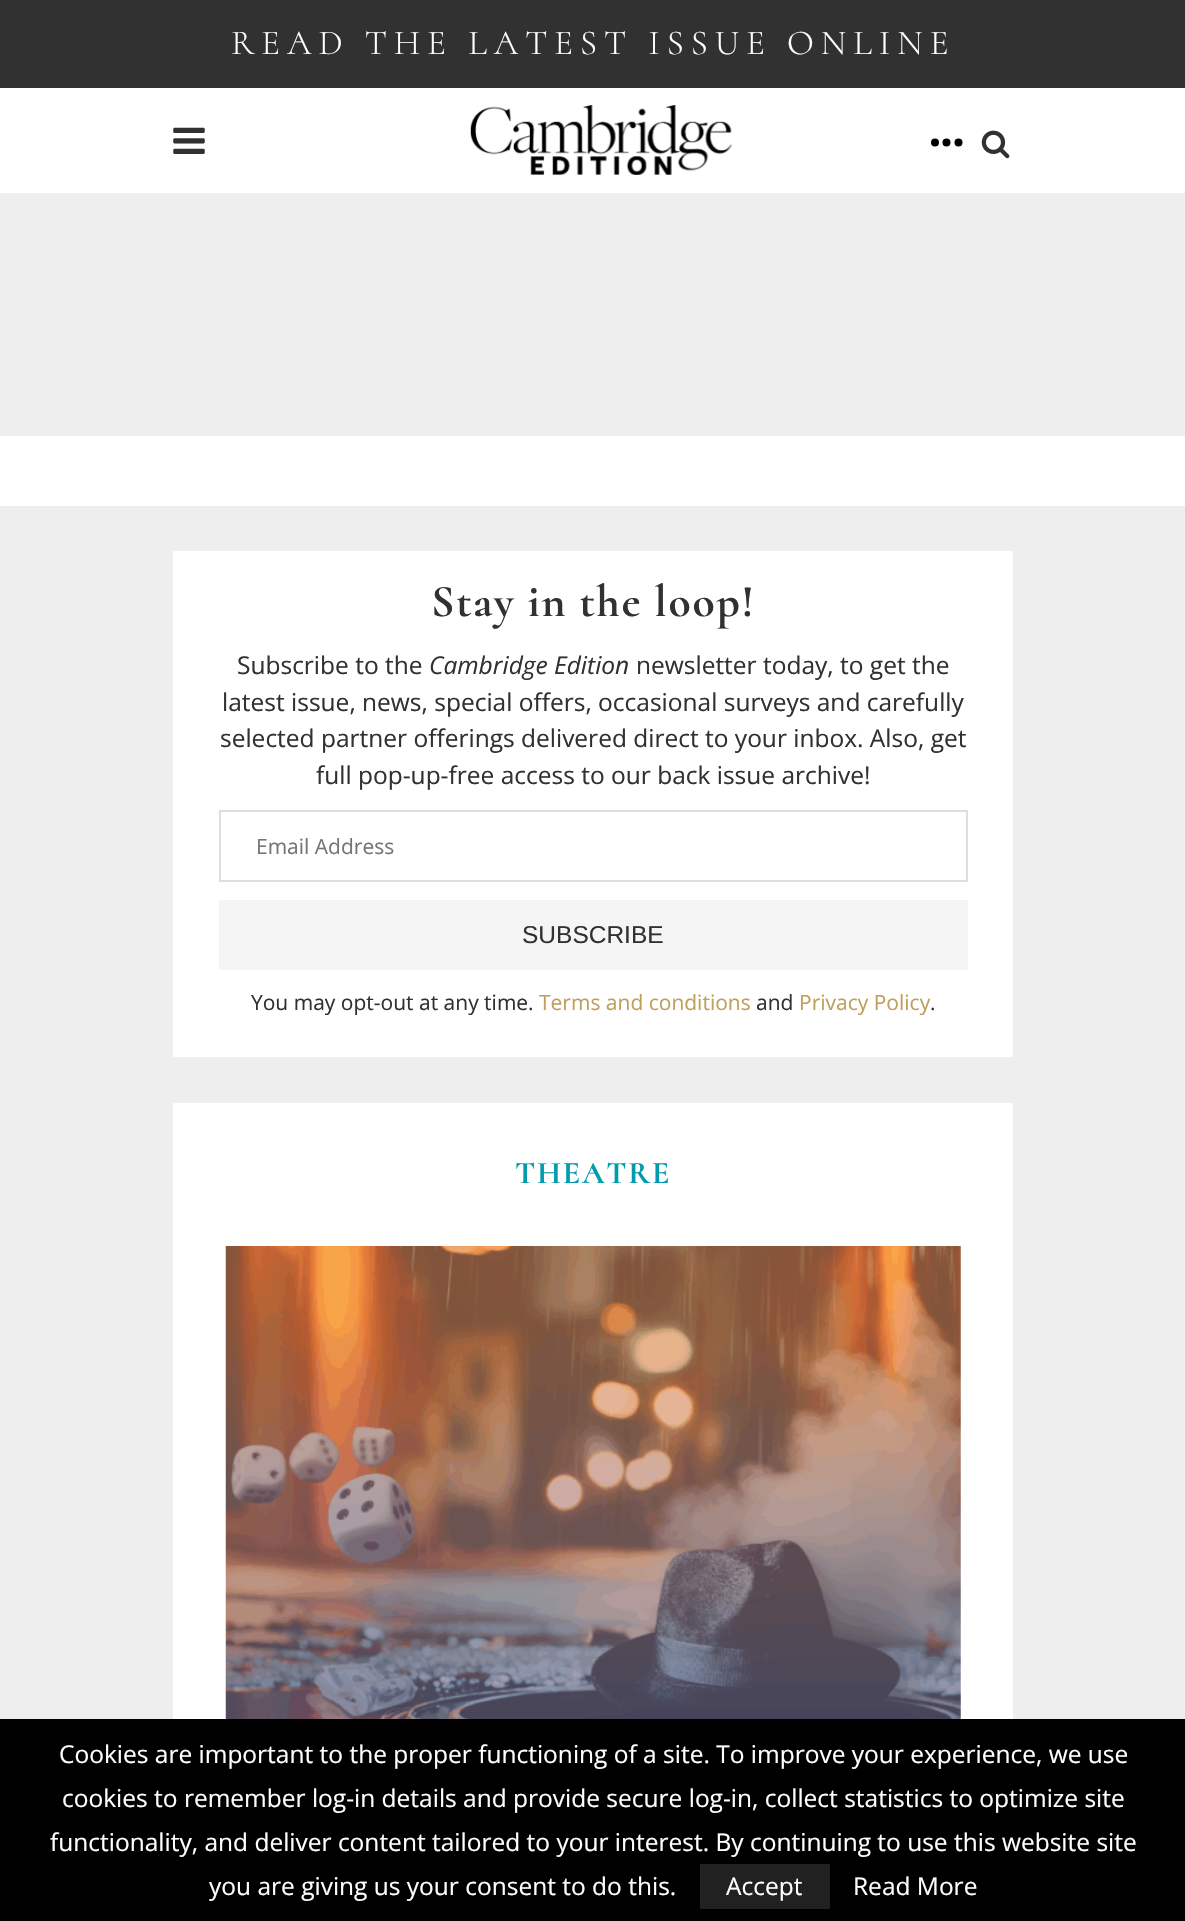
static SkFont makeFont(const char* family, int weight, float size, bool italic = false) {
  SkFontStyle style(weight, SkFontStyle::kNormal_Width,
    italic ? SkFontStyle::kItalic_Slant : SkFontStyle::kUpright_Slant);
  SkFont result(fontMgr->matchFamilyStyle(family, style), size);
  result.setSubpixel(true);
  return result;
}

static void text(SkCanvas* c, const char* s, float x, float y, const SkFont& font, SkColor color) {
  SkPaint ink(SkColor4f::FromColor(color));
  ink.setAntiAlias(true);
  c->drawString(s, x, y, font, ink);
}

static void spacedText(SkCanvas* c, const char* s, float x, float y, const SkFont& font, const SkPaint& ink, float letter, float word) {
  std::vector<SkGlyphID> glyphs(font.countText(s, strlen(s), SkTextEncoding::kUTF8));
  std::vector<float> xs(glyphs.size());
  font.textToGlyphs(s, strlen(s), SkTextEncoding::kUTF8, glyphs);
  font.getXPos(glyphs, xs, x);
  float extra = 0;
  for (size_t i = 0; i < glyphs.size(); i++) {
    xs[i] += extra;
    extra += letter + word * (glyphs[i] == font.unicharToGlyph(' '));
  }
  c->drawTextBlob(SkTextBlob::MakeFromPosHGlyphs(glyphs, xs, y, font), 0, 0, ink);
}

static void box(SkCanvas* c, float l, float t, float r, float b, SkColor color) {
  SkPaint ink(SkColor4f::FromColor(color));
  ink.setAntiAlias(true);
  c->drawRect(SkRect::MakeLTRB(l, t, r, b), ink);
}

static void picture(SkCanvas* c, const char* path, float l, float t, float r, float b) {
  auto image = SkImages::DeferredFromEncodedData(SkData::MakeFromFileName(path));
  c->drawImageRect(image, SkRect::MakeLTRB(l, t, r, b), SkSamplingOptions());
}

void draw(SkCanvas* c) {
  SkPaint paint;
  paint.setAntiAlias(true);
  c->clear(0xffeeeeee);
  box(c, 0, 0, 1185, 88, 0xff313131);
  SkFont face1 = makeFont("Cormorant", 300, 35);
  paint.setColor(0xffffffff);
  spacedText(c, "READ THE LATEST ISSUE ONLINE", 231, 54, face1, paint, 7, 0);
  box(c, 0, 88, 1185, 193, 0xffffffff);
  picture(c, "img_01.png", 173, 127, 205, 154);
  picture(c, "img_02.png", 470, 105, 732, 175);
  paint.setColor(0xff000000);
  c->drawCircle(935, 142.5f, 4, paint);
  c->drawCircle(946.5f, 142.5f, 4, paint);
  c->drawCircle(958.5f, 142.5f, 4, paint);
  picture(c, "img_03.png", 981, 130, 1010, 159);
  box(c, 0, 436, 1185, 506, 0xffffffff);
  box(c, 173, 551, 1013, 1057, 0xffffffff);
  SkFont face2 = makeFont("Cormorant", 700, 45.5f);
  paint.setColor(0xff313131);
  spacedText(c, "Stay in the loop!", 431, 616, face2, paint, 1.75f, 0);
  SkFont face3 = makeFont("Open Sans", 400, 24.5f);
  text(c, "Subscribe to the", 237, 674, face3, 0xff313131);
  SkFont face4 = makeFont("Open Sans", 400, 24.5f, true);
  text(c, "Cambridge Edition", 429, 674, face4, 0xff313131);
  text(c, "newsletter today, to get the", 636, 674, face3, 0xff313131);
  text(c, "latest issue, news, special offers, occasional surveys and carefully", 222, 711, face3, 0xff313131);
  text(c, "selected partner offerings delivered direct to your inbox. Also, get", 220, 747, face3, 0xff313131);
  text(c, "full pop-up-free access to our back issue archive!", 316, 784, face3, 0xff313131);
  paint.setStyle(SkPaint::kStroke_Style);
  paint.setStrokeWidth(2);
  paint.setColor(0xffdedede);
  c->drawRect(SkRect::MakeLTRB(220, 811, 967, 881), paint);
  SkFont face5 = makeFont("Open Sans", 400, 21);
  text(c, "Email Address", 256, 854, face5, 0xff757575);
  box(c, 219, 900, 968, 970, 0xfff5f5f5);
  SkFont face6 = makeFont("Liberation Sans", 400, 24.5f);
  text(c, "SUBSCRIBE", 522, 943, face6, 0xff313131);
  text(c, "You may opt-out at any time.", 251, 1010, face5, 0xff313131);
  text(c, "Terms and conditions", 539, 1010, face5, 0xffbf9f5a);
  text(c, "and", 756, 1010, face5, 0xff313131);
  text(c, "Privacy Policy", 799, 1010, face5, 0xffbf9f5a);
  text(c, ".", 930, 1010, face5, 0xff313131);
  box(c, 173, 1103, 1013, 1719, 0xffffffff);
  SkFont face7 = makeFont("Cormorant", 700, 31.5f);
  paint.setStyle(SkPaint::kFill_Style);
  paint.setColor(0xff009bac);
  spacedText(c, "THEATRE", 515, 1183, face7, paint, 1.75f, 0);
  picture(c, "img_04.png", 225, 1246, 961, 1719);
  box(c, 0, 1719, 1185, 1921, 0xff000000);
  text(c, "Cookies are important to the proper functioning of a site. To improve your experience, we use", 59, 1763, face3, 0xffffffff);
  text(c, "cookies to remember log-in details and provide secure log-in, collect statistics to optimize site", 62, 1807, face3, 0xffffffff);
  text(c, "functionality, and deliver content tailored to your interest. By continuing to use this website site", 50, 1851, face3, 0xffffffff);
  text(c, "you are giving us your consent to do this.", 209, 1895, face3, 0xffffffff);
  box(c, 700, 1864, 830, 1909, 0xff212121);
  text(c, "Accept", 726, 1895, face3, 0xffffffff);
  text(c, "Read More", 853, 1895, face3, 0xffffffff);
}
